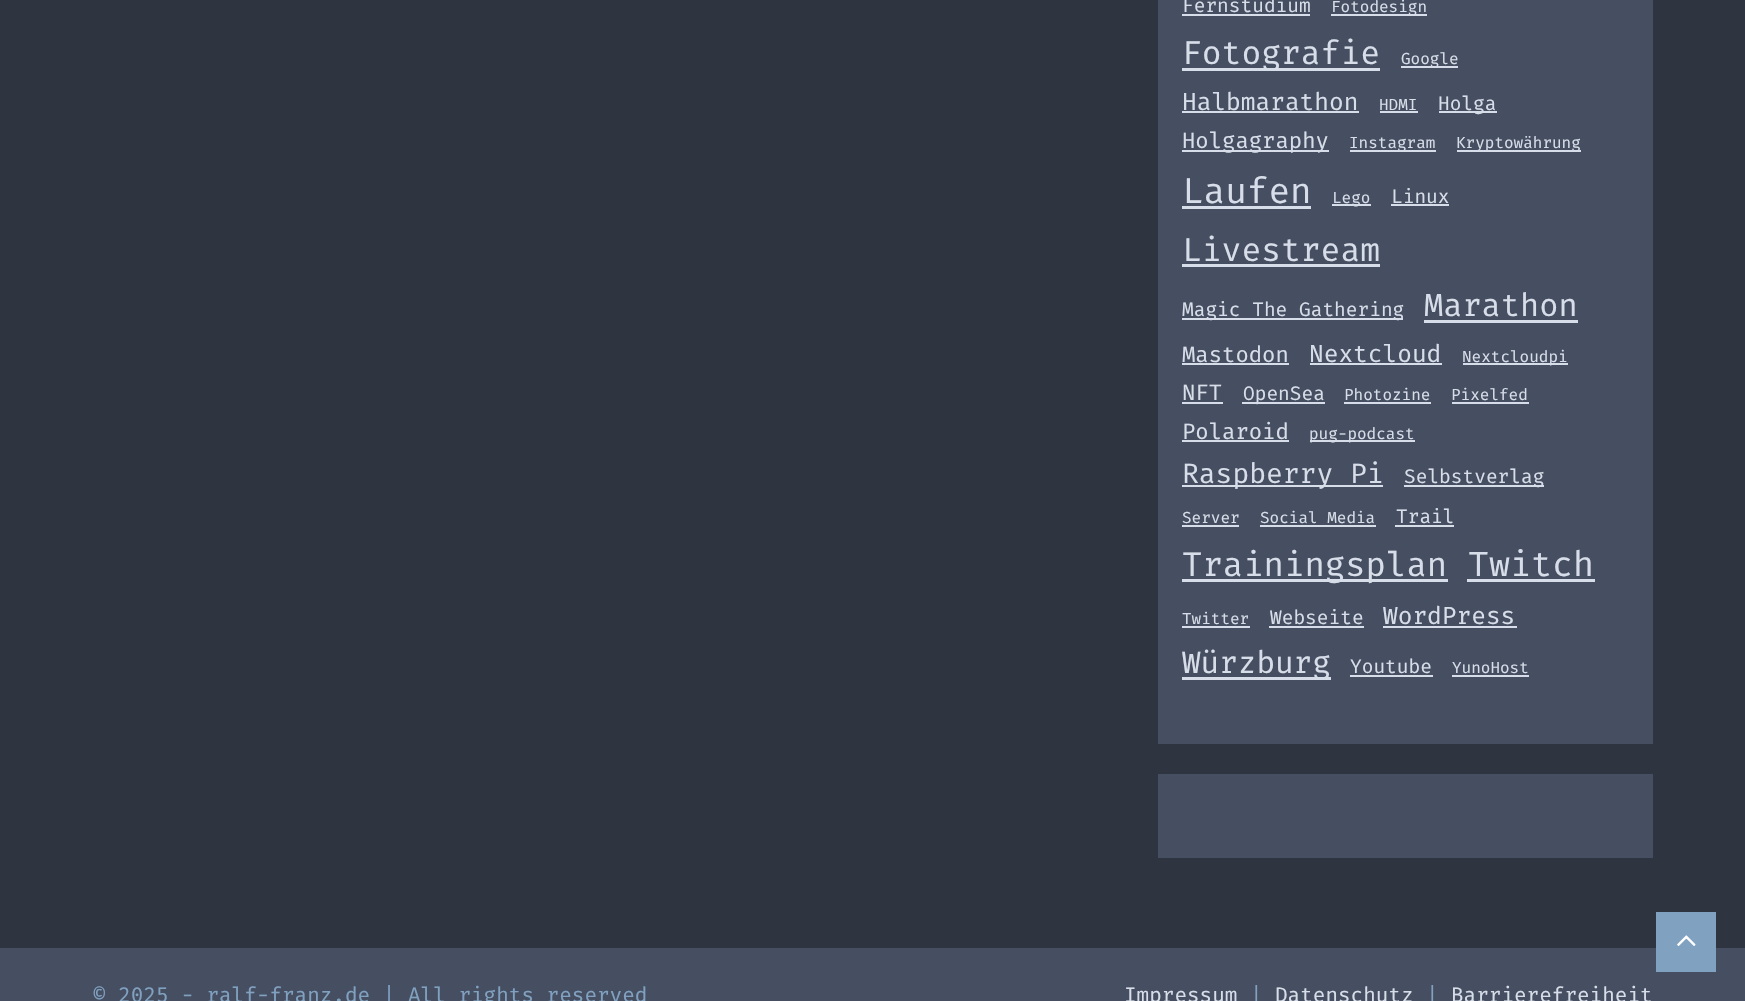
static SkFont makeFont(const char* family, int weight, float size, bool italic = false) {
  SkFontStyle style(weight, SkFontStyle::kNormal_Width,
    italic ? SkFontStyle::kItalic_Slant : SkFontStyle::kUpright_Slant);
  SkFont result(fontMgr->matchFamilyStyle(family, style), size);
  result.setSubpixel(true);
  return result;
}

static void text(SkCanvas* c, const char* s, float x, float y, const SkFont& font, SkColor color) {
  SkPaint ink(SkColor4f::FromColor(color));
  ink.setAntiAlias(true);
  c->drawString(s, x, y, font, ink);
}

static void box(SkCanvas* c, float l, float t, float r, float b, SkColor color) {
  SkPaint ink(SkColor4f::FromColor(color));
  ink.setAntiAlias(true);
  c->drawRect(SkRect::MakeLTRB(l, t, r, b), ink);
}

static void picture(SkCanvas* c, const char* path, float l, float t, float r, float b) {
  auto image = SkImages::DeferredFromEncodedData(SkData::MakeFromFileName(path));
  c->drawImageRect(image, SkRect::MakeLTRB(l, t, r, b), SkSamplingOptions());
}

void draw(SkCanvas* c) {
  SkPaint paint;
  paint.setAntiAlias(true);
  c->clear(0xff2f3540);
  box(c, 1158, 0, 1653, 744, 0xff464f61);
  SkFont face1 = makeFont("Fira Mono", 400, 19.5f);
  text(c, "Fernstudium", 1182, 12, face1, 0xffd8dee9);
  box(c, 1182, 14, 1310, 16, 0xffd8dee9);
  box(c, 1331, 14, 1427, 16, 0xffd8dee9);
  SkFont face2 = makeFont("Fira Mono", 400, 16);
  text(c, "Fotodesign", 1331, 12, face2, 0xffd8dee9);
  box(c, 1182, 68, 1380, 71, 0xffd8dee9);
  SkFont face3 = makeFont("Fira Mono", 400, 33);
  text(c, "Fotografie", 1182, 64, face3, 0xffd8dee9);
  box(c, 1401, 66, 1458, 68, 0xffd8dee9);
  text(c, "Google", 1401, 64, face2, 0xffd8dee9);
  SkFont face4 = makeFont("Fira Mono", 400, 24.5f);
  text(c, "Halbmarathon", 1182, 110, face4, 0xffd8dee9);
  box(c, 1182, 111, 1359, 113, 0xffd8dee9);
  text(c, "HDMI", 1379, 110, face2, 0xffd8dee9);
  box(c, 1380, 111, 1418, 113, 0xffd8dee9);
  box(c, 1439, 111, 1497, 113, 0xffd8dee9);
  text(c, "Holga", 1438, 110, face1, 0xffd8dee9);
  box(c, 1182, 150, 1329, 152, 0xffd8dee9);
  SkFont face5 = makeFont("Fira Mono", 400, 22.25f);
  text(c, "Holgagraphy", 1182, 148, face5, 0xffd8dee9);
  box(c, 1350, 150, 1436, 152, 0xffd8dee9);
  text(c, "Instagram", 1349, 148, face2, 0xffd8dee9);
  box(c, 1457, 150, 1581, 152, 0xffd8dee9);
  text(c, "Kryptowährung", 1456, 148, face2, 0xffd8dee9);
  SkFont face6 = makeFont("Fira Mono", 400, 36);
  text(c, "Laufen", 1182, 203, face6, 0xffd8dee9);
  box(c, 1182, 206, 1311, 209, 0xffd8dee9);
  box(c, 1332, 204, 1371, 206, 0xffd8dee9);
  text(c, "Lego", 1332, 203, face2, 0xffd8dee9);
  text(c, "Linux", 1391, 203, face1, 0xffd8dee9);
  box(c, 1391, 204, 1449, 206, 0xffd8dee9);
  text(c, "Livestream", 1182, 261, face3, 0xffd8dee9);
  box(c, 1182, 264, 1380, 267, 0xffd8dee9);
  box(c, 1182, 318, 1403, 320, 0xffd8dee9);
  text(c, "Magic The Gathering", 1182, 316, face1, 0xffd8dee9);
  SkFont face7 = makeFont("Fira Mono", 400, 32);
  text(c, "Marathon", 1424, 316, face7, 0xffd8dee9);
  box(c, 1424, 320, 1578, 323, 0xffd8dee9);
  text(c, "Mastodon", 1182, 362, face5, 0xffd8dee9);
  box(c, 1182, 363, 1289, 365, 0xffd8dee9);
  text(c, "Nextcloud", 1309, 362, face4, 0xffd8dee9);
  box(c, 1310, 363, 1442, 365, 0xffd8dee9);
  box(c, 1463, 363, 1568, 365, 0xffd8dee9);
  text(c, "Nextcloudpi", 1462, 362, face2, 0xffd8dee9);
  text(c, "NFT", 1182, 400, face5, 0xffd8dee9);
  box(c, 1182, 402, 1223, 404, 0xffd8dee9);
  box(c, 1242, 402, 1325, 404, 0xffd8dee9);
  text(c, "OpenSea", 1243, 400, face1, 0xffd8dee9);
  text(c, "Photozine", 1344, 400, face2, 0xffd8dee9);
  box(c, 1344, 402, 1431, 404, 0xffd8dee9);
  text(c, "Pixelfed", 1451, 400, face2, 0xffd8dee9);
  box(c, 1452, 402, 1529, 404, 0xffd8dee9);
  text(c, "Polaroid", 1182, 439, face5, 0xffd8dee9);
  box(c, 1182, 440, 1289, 442, 0xffd8dee9);
  box(c, 1310, 440, 1415, 442, 0xffd8dee9);
  text(c, "pug-podcast", 1309, 439, face2, 0xffd8dee9);
  box(c, 1182, 485, 1383, 487, 0xffd8dee9);
  SkFont face8 = makeFont("Fira Mono", 400, 28);
  text(c, "Raspberry Pi", 1182, 483, face8, 0xffd8dee9);
  box(c, 1404, 485, 1544, 487, 0xffd8dee9);
  text(c, "Selbstverlag", 1404, 483, face1, 0xffd8dee9);
  text(c, "Server", 1182, 523, face2, 0xffd8dee9);
  box(c, 1182, 525, 1239, 527, 0xffd8dee9);
  text(c, "Social Media", 1260, 523, face2, 0xffd8dee9);
  box(c, 1260, 525, 1376, 527, 0xffd8dee9);
  text(c, "Trail", 1396, 523, face1, 0xffd8dee9);
  box(c, 1395, 525, 1454, 527, 0xffd8dee9);
  box(c, 1182, 579, 1448, 582, 0xffd8dee9);
  SkFont face9 = makeFont("Fira Mono", 400, 34);
  text(c, "Trainingsplan", 1182, 576, face9, 0xffd8dee9);
  SkFont face10 = makeFont("Fira Mono", 400, 35);
  text(c, "Twitch", 1468, 576, face10, 0xffd8dee9);
  box(c, 1467, 579, 1595, 582, 0xffd8dee9);
  text(c, "Twitter", 1182, 624, face2, 0xffd8dee9);
  box(c, 1182, 626, 1250, 628, 0xffd8dee9);
  text(c, "Webseite", 1270, 624, face1, 0xffd8dee9);
  box(c, 1269, 626, 1364, 628, 0xffd8dee9);
  text(c, "WordPress", 1383, 624, face4, 0xffd8dee9);
  box(c, 1383, 626, 1517, 628, 0xffd8dee9);
  box(c, 1182, 677, 1331, 680, 0xffd8dee9);
  SkFont face11 = makeFont("Fira Mono", 400, 31);
  text(c, "Würzburg", 1182, 673, face11, 0xffd8dee9);
  text(c, "Youtube", 1350, 673, face1, 0xffd8dee9);
  box(c, 1350, 675, 1433, 677, 0xffd8dee9);
  text(c, "YunoHost", 1452, 673, face2, 0xffd8dee9);
  box(c, 1452, 675, 1529, 677, 0xffd8dee9);
  box(c, 1158, 774, 1653, 858, 0xff464f61);
  box(c, 0, 948, 1745, 1001, 0xff464f61);
  SkFont face12 = makeFont("Fira Mono", 400, 21);
  text(c, "© 2025 - ralf-franz.de | All rights reserved", 93, 1002, face12, 0xff81a1c1);
  text(c, "Impressum", 1124, 1002, face12, 0xffd8dee9);
  text(c, "|", 1250, 1002, face12, 0xff81a1c1);
  text(c, "Datenschutz", 1275, 1002, face12, 0xffd8dee9);
  text(c, "|", 1426, 1002, face12, 0xff81a1c1);
  text(c, "Barrierefreiheit", 1451, 1002, face12, 0xffd8dee9);
  box(c, 1656, 912, 1716, 972, 0xff81a1c1);
  picture(c, "img_01.png", 1677, 935, 1696, 946);
}
